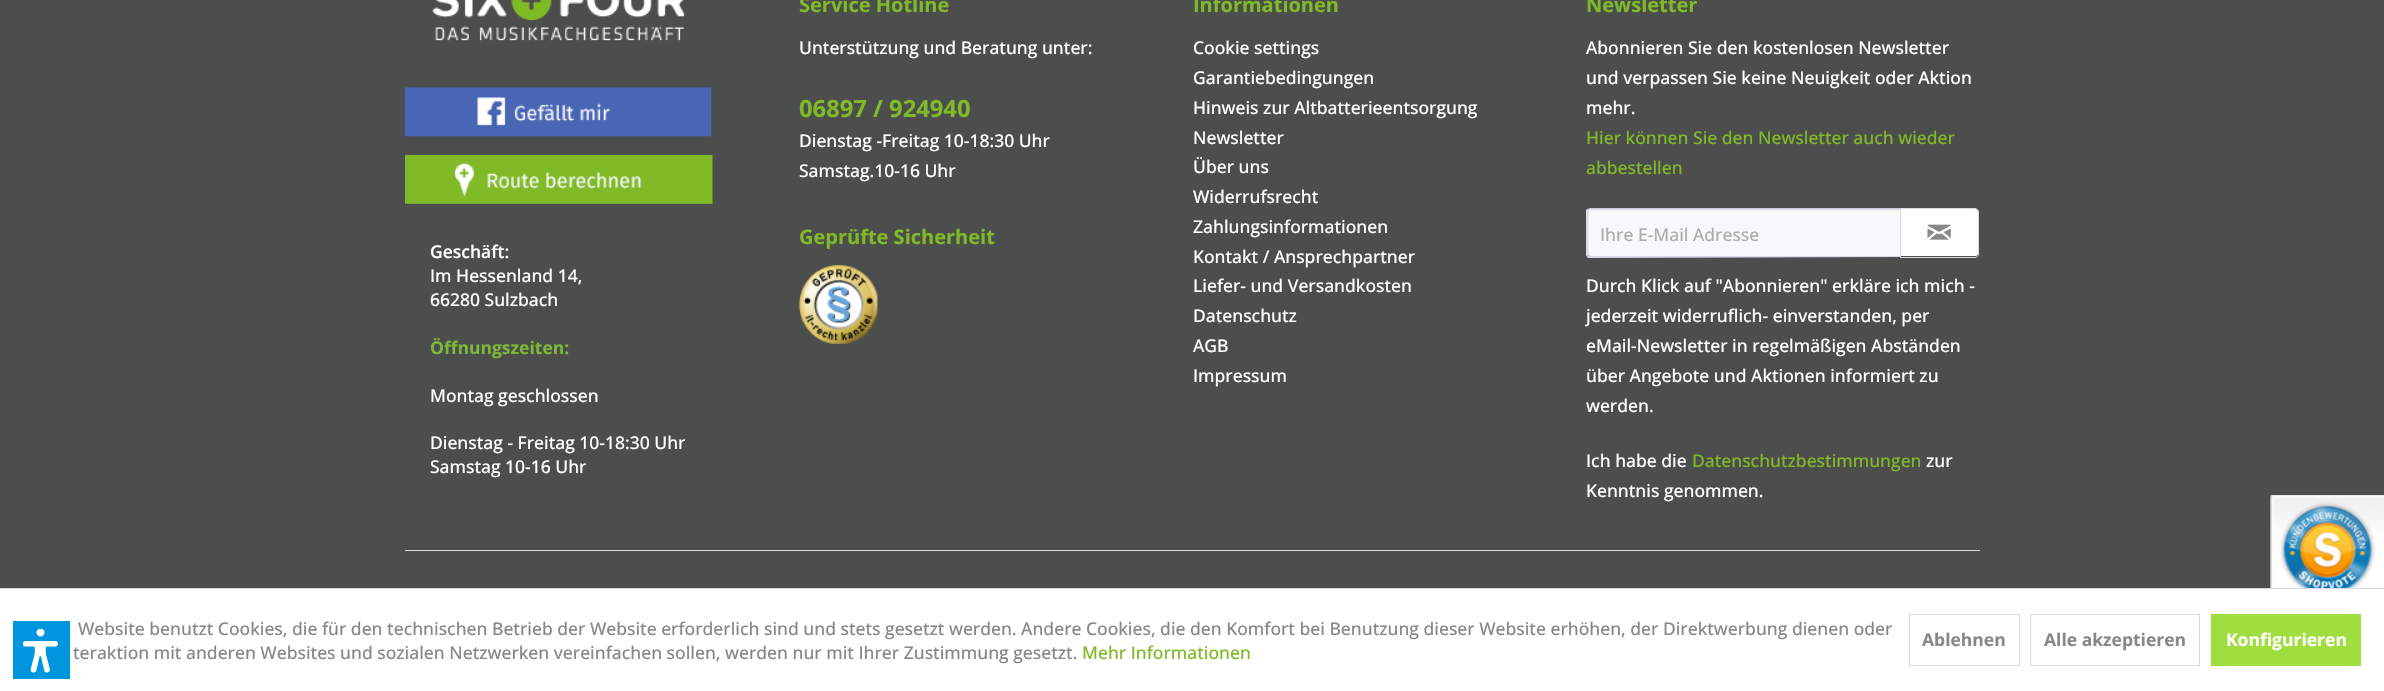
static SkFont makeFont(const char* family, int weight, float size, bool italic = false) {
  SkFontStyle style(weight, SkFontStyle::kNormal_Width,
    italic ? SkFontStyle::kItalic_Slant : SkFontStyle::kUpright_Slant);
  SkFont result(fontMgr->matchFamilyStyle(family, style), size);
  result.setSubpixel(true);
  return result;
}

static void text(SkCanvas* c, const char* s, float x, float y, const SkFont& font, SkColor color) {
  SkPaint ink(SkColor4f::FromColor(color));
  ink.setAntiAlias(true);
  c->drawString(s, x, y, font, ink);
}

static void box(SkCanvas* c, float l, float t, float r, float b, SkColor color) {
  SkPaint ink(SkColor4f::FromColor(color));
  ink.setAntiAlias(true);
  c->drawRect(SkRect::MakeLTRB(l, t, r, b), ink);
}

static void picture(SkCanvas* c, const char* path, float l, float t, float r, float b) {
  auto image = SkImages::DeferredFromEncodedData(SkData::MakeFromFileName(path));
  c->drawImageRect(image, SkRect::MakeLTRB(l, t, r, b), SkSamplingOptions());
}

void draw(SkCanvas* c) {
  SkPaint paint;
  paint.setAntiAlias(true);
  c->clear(0xff4b4e4c);
  box(c, 405, 550, 1980, 551, 0xffdadae5);
  picture(c, "img_01.png", 432, 0, 686, 41);
  picture(c, "img_02.png", 405, 87, 712, 137);
  picture(c, "img_03.png", 405, 155, 713, 204);
  SkFont face1 = makeFont("Open Sans", 600, 17.5f);
  text(c, "Geschäft:", 430, 258, face1, 0xffffffff);
  SkFont face2 = makeFont("Open Sans", 500, 17.5f);
  text(c, "Im Hessenland 14,", 430, 282, face2, 0xffffffff);
  text(c, "66280 Sulzbach", 430, 306, face2, 0xffffffff);
  SkFont face3 = makeFont("Open Sans", 700, 17.5f);
  text(c, "Öffnungszeiten:", 430, 354, face3, 0xff7eb838);
  text(c, "Montag geschlossen", 430, 402, face2, 0xffffffff);
  text(c, "Dienstag - Freitag 10-18:30 Uhr", 430, 449, face2, 0xffffffff);
  text(c, "Samstag 10-16 Uhr", 430, 473, face2, 0xffffffff);
  SkFont face4 = makeFont("Open Sans", 700, 20);
  text(c, "Service Hotline", 799, 12, face4, 0xff80ba27);
  text(c, "Unterstützung und Beratung unter:", 799, 54, face2, 0xffffffff);
  SkFont face5 = makeFont("Open Sans", 700, 23.75f);
  text(c, "06897 / 924940", 799, 117, face5, 0xff80ba27);
  text(c, "Dienstag -Freitag 10-18:30 Uhr", 799, 147, face2, 0xffffffff);
  text(c, "Samstag.10-16 Uhr", 799, 177, face2, 0xffffffff);
  text(c, "Geprüfte Sicherheit", 799, 244, face4, 0xff80ba27);
  picture(c, "img_04.png", 798, 265, 878, 344);
  text(c, "Informationen", 1193, 12, face4, 0xff80ba27);
  text(c, "Cookie settings", 1193, 54, face2, 0xffffffff);
  text(c, "Garantiebedingungen", 1193, 84, face2, 0xffffffff);
  text(c, "Hinweis zur Altbatterieentsorgung", 1193, 114, face2, 0xffffffff);
  text(c, "Newsletter", 1193, 144, face2, 0xffffffff);
  text(c, "Über uns", 1193, 173, face2, 0xffffffff);
  text(c, "Widerrufsrecht", 1193, 203, face2, 0xffffffff);
  text(c, "Zahlungsinformationen", 1193, 233, face2, 0xffffffff);
  text(c, "Kontakt / Ansprechpartner", 1193, 263, face2, 0xffffffff);
  text(c, "Liefer- und Versandkosten", 1193, 292, face2, 0xffffffff);
  text(c, "Datenschutz", 1193, 322, face2, 0xffffffff);
  text(c, "AGB", 1193, 352, face2, 0xffffffff);
  text(c, "Impressum", 1193, 382, face2, 0xffffffff);
  text(c, "Newsletter", 1586, 12, face4, 0xff80ba27);
  text(c, "Abonnieren Sie den kostenlosen Newsletter", 1586, 54, face2, 0xffffffff);
  text(c, "und verpassen Sie keine Neuigkeit oder Aktion", 1586, 84, face2, 0xffffffff);
  text(c, "mehr.", 1586, 114, face2, 0xffffffff);
  text(c, "Hier können Sie den Newsletter auch wieder", 1586, 144, face2, 0xff80ba27);
  text(c, "abbestellen", 1586, 174, face2, 0xff80ba27);
  paint.setColor(0xfff8f8fa);
  c->drawPath(SkPathBuilder().moveTo(1590.5f, 209).lineTo(1900, 209).lineTo(1900, 256).lineTo(1590.5f, 256).cubicTo(1589, 256, 1588, 255, 1588, 253.5f).lineTo(1588, 211.5f).cubicTo(1588, 210, 1589, 209, 1590.5f, 209).close().detach(), paint);
  paint.setColor(0xffdadae5);
  c->drawPath(SkPathBuilder().moveTo(1590, 210).lineTo(1900, 210).lineTo(1900, 209).lineTo(1590, 209).cubicTo(1589, 209, 1588, 210, 1588, 212).cubicTo(1588, 211, 1589, 210, 1590, 210).close().detach(), paint);
  paint.setColor(0xffcbcbdb);
  c->drawPath(SkPathBuilder().moveTo(1590, 208).lineTo(1587, 209).lineTo(1589, 210).lineTo(1590, 209).lineTo(1900, 209).lineTo(1901, 208).close().detach(), paint);
  paint.setColor(0xffdadae5);
  c->drawPath(SkPathBuilder().moveTo(1588, 258).lineTo(1587, 257).lineTo(1589, 255).lineTo(1590, 256).lineTo(1900, 256).lineTo(1901, 257).close().detach(), paint);
  c->drawPath(SkPathBuilder().moveTo(1586, 210).lineTo(1587, 209).lineTo(1589, 210).cubicTo(1588, 211, 1588, 254, 1589, 255).lineTo(1587, 257).lineTo(1586, 255).close().detach(), paint);
  text(c, "Ihre E-Mail Adresse", 1600, 241, face2, 0xffaeaeae);
  paint.setColor(0xffffffff);
  c->drawPath(SkPathBuilder().moveTo(1901, 209).lineTo(1975.5f, 209).cubicTo(1977, 209, 1978, 210, 1978, 211.5f).lineTo(1978, 253.5f).cubicTo(1978, 255, 1977, 256, 1975.5f, 256).lineTo(1901, 256).close().detach(), paint);
  paint.setStyle(SkPaint::kStroke_Style);
  paint.setStrokeWidth(1);
  paint.setColor(0xffdadae5);
  c->drawPath(SkPathBuilder().moveTo(1900.5f, 208.5f).lineTo(1975, 208.5f).cubicTo(1977, 208.5f, 1978.5f, 210, 1978.5f, 212).lineTo(1978.5f, 254).cubicTo(1978.5f, 256, 1977, 257.5f, 1975, 257.5f).lineTo(1900.5f, 257.5f).close().detach(), paint);
  picture(c, "img_05.png", 1927, 224, 1951, 240);
  text(c, "Durch Klick auf \"Abonnieren\" erkläre ich mich -", 1586, 292, face2, 0xffffffff);
  text(c, "jederzeit widerruflich- einverstanden, per", 1586, 322, face2, 0xffffffff);
  text(c, "eMail-Newsletter in regelmäßigen Abständen", 1586, 352, face2, 0xffffffff);
  text(c, "über Angebote und Aktionen informiert zu", 1586, 382, face2, 0xffffffff);
  text(c, "werden.", 1586, 412, face2, 0xffffffff);
  text(c, "Ich habe die", 1586, 467, face2, 0xffffffff);
  text(c, "Datenschutzbestimmungen", 1692, 467, face2, 0xff80ba27);
  text(c, "zur", 1926, 467, face2, 0xffffffff);
  text(c, "Kenntnis genommen.", 1586, 497, face2, 0xffffffff);
  box(c, 0, 589, 2384, 691, 0xffffffff);
  box(c, 0, 588, 2384, 589, 0xffdadae5);
  text(c, "Website benutzt Cookies, die für den technischen Betrieb der Website erforderlich sind und stets gesetzt werden. Andere Cookies, die den Komfort bei Benutzung dieser Website erhöhen, der Direktwerbung dienen oder", 78, 635, face2, 0xff888888);
  text(c, "teraktion mit anderen Websites und sozialen Netzwerken vereinfachen sollen, werden nur mit Ihrer Zustimmung gesetzt.", 73, 659, face2, 0xff888888);
  text(c, "Mehr Informationen", 1082, 659, face2, 0xff80ba27);
  c->drawRect(SkRect::MakeLTRB(1909.5f, 614.5f, 2019.5f, 665.5f), paint);
  text(c, "Ablehnen", 1922, 646, face3, 0xff888888);
  c->drawRect(SkRect::MakeLTRB(2030.5f, 614.5f, 2199.5f, 665.5f), paint);
  text(c, "Alle akzeptieren", 2044, 646, face3, 0xff888888);
  box(c, 2211, 614, 2361, 666, 0xffa0de40);
  text(c, "Konfigurieren", 2226, 646, face3, 0xffffffff);
  picture(c, "img_06.png", 2270, 495, 2384, 588);
  box(c, 13, 621, 70, 679, 0xff0096de);
  picture(c, "img_07.png", 23, 629, 58, 673);
}
